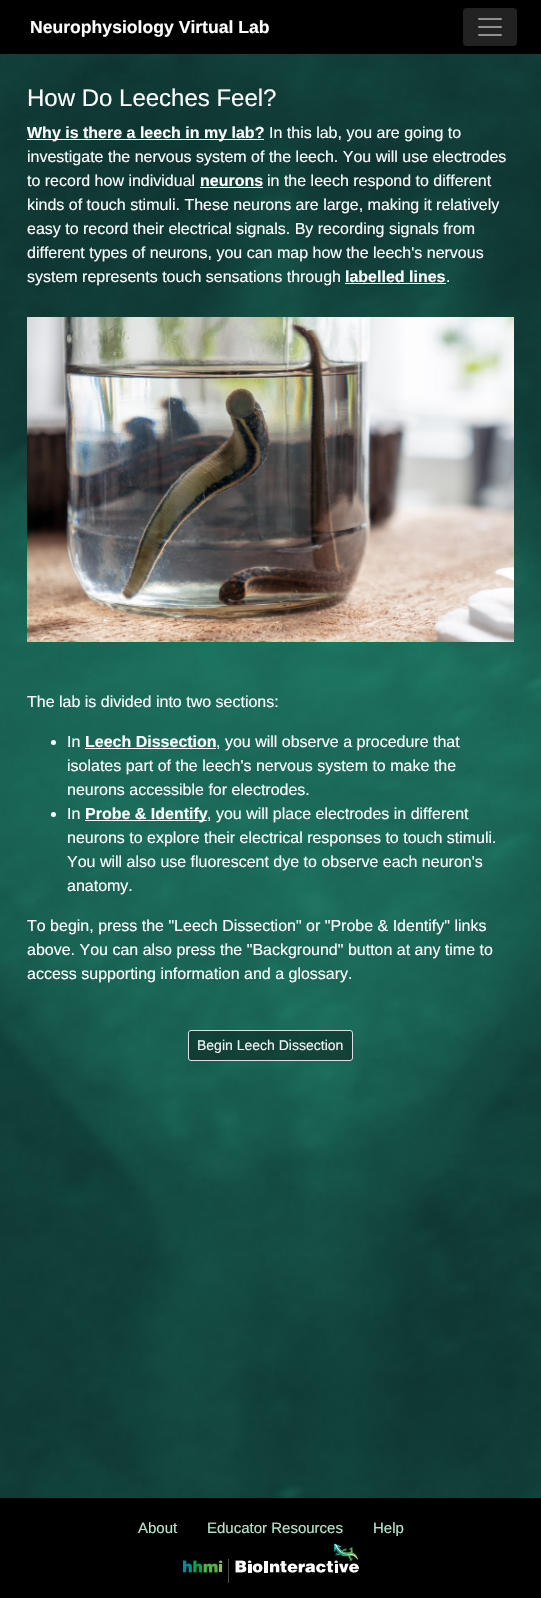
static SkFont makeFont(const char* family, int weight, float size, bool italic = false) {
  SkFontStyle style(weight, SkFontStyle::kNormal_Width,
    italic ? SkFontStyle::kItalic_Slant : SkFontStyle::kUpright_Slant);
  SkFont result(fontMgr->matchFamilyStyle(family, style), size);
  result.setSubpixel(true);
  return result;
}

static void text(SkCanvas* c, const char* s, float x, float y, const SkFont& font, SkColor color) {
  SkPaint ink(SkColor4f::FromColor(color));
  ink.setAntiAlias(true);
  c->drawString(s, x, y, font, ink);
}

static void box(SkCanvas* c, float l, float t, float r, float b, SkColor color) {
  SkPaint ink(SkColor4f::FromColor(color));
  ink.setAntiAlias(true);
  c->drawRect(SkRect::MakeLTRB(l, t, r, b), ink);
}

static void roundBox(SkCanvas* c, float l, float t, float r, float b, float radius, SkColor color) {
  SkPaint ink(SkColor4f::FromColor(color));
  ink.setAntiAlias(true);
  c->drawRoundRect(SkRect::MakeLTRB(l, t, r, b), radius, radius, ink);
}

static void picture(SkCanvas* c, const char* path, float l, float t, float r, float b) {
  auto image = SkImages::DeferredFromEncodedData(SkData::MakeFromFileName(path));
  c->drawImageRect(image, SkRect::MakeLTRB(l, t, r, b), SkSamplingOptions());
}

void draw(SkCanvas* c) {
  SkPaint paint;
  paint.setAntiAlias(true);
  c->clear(0xffffffff);
  picture(c, "img_01.png", 0, 54, 541, 1498);
  box(c, 0, 0, 541, 54, 0xff000000);
  SkFont face1 = makeFont("Liberation Sans", 700, 17.6f);
  text(c, "Neurophysiology Virtual Lab", 30, 33, face1, 0xffffffff);
  roundBox(c, 463, 8, 517, 46, 4, 0xff222222);
  picture(c, "img_02.png", 478, 18, 502, 36);
  SkFont face2 = makeFont("Liberation Sans", 400, 24);
  text(c, "How Do Leeches Feel?", 27, 106, face2, 0xffffffff);
  box(c, 27, 139, 264, 140, 0xffffffff);
  SkFont face3 = makeFont("Liberation Sans", 700, 16);
  text(c, "Why is there a leech in my lab?", 27, 138, face3, 0xffffffff);
  SkFont face4 = makeFont("Liberation Sans", 400, 16);
  text(c, "In this lab, you are going to", 269, 138, face4, 0xffffffff);
  text(c, "investigate the nervous system of the leech. You will use electrodes", 27, 162, face4, 0xffffffff);
  text(c, "to record how individual", 27, 186, face4, 0xffffffff);
  text(c, "neurons", 200, 186, face3, 0xffffffff);
  box(c, 200, 187, 263, 188, 0xffffffff);
  text(c, "in the leech respond to different", 267, 186, face4, 0xffffffff);
  text(c, "kinds of touch stimuli. These neurons are large, making it relatively", 27, 210, face4, 0xffffffff);
  text(c, "easy to record their electrical signals. By recording signals from", 27, 234, face4, 0xffffffff);
  text(c, "different types of neurons, you can map how the leech's nervous", 27, 258, face4, 0xffffffff);
  text(c, "system represents touch sensations through", 27, 282, face4, 0xffffffff);
  text(c, "labelled lines", 345, 282, face3, 0xffffffff);
  box(c, 345, 283, 446, 284, 0xffffffff);
  text(c, ".", 446, 282, face4, 0xffffffff);
  picture(c, "img_03.png", 27, 317, 514, 642);
  text(c, "The lab is divided into two sections:", 27, 707, face4, 0xffffffff);
  paint.setColor(0xffffffff);
  c->drawCircle(53.5f, 742.5f, 2.5f, paint);
  text(c, "In", 67, 747, face4, 0xffffffff);
  text(c, "Leech Dissection", 85, 747, face3, 0xffffffff);
  box(c, 85, 748, 216, 749, 0xffffffff);
  text(c, ", you will observe a procedure that", 216, 747, face4, 0xffffffff);
  text(c, "isolates part of the leech's nervous system to make the", 67, 771, face4, 0xffffffff);
  text(c, "neurons accessible for electrodes.", 67, 795, face4, 0xffffffff);
  c->drawCircle(53.5f, 814.5f, 2.5f, paint);
  text(c, "In", 67, 819, face4, 0xffffffff);
  box(c, 85, 820, 207, 821, 0xffffffff);
  text(c, "Probe & Identify", 85, 819, face3, 0xffffffff);
  text(c, ", you will place electrodes in different", 207, 819, face4, 0xffffffff);
  text(c, "neurons to explore their electrical responses to touch stimuli.", 67, 843, face4, 0xffffffff);
  text(c, "You will also use fluorescent dye to observe each neuron's", 67, 867, face4, 0xffffffff);
  text(c, "anatomy.", 67, 891, face4, 0xffffffff);
  text(c, "To begin, press the \"Leech Dissection\" or \"Probe & Identify\" links", 27, 931, face4, 0xffffffff);
  text(c, "above. You can also press the \"Background\" button at any time to", 27, 955, face4, 0xffffffff);
  text(c, "access supporting information and a glossary.", 27, 979, face4, 0xffffffff);
  paint.setColor(0x5c000000);
  c->drawRoundRect(SkRect::MakeLTRB(188.5f, 1030.5f, 352.5f, 1060.5f), 2.5f, 2.5f, paint);
  paint.setStyle(SkPaint::kStroke_Style);
  paint.setStrokeWidth(1);
  paint.setColor(0xffdee2e6);
  c->drawRoundRect(SkRect::MakeLTRB(188.5f, 1030.5f, 352.5f, 1060.5f), 2.5f, 2.5f, paint);
  SkFont face5 = makeFont("Liberation Sans", 400, 14);
  text(c, "Begin Leech Dissection", 197, 1050, face5, 0xfff2f2f2);
  box(c, 0, 1498, 541, 1598, 0xff000000);
  SkFont face6 = makeFont("Liberation Sans", 400, 15);
  text(c, "About", 138, 1533, face6, 0xffb4e4cb);
  text(c, "Educator Resources", 207, 1533, face6, 0xffb4e4cb);
  text(c, "Help", 373, 1533, face6, 0xffb4e4cb);
  picture(c, "img_04.png", 183, 1543, 359, 1583);
}
